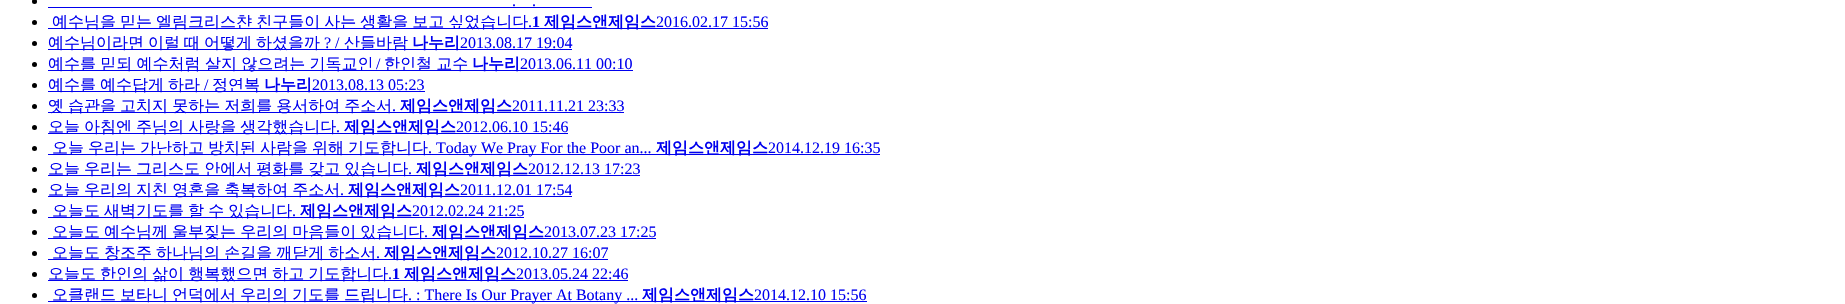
static SkFont makeFont(const char* family, int weight, float size, bool italic = false) {
  SkFontStyle style(weight, SkFontStyle::kNormal_Width,
    italic ? SkFontStyle::kItalic_Slant : SkFontStyle::kUpright_Slant);
  SkFont result(fontMgr->matchFamilyStyle(family, style), size);
  result.setSubpixel(true);
  return result;
}

static void text(SkCanvas* c, const char* s, float x, float y, const SkFont& font, SkColor color) {
  SkPaint ink(SkColor4f::FromColor(color));
  ink.setAntiAlias(true);
  c->drawString(s, x, y, font, ink);
}

static void spacedText(SkCanvas* c, const char* s, float x, float y, const SkFont& font, const SkPaint& ink, float letter, float word) {
  std::vector<SkGlyphID> glyphs(font.countText(s, strlen(s), SkTextEncoding::kUTF8));
  std::vector<float> xs(glyphs.size());
  font.textToGlyphs(s, strlen(s), SkTextEncoding::kUTF8, glyphs);
  font.getXPos(glyphs, xs, x);
  float extra = 0;
  for (size_t i = 0; i < glyphs.size(); i++) {
    xs[i] += extra;
    extra += letter + word * (glyphs[i] == font.unicharToGlyph(' '));
  }
  c->drawTextBlob(SkTextBlob::MakeFromPosHGlyphs(glyphs, xs, y, font), 0, 0, ink);
}

static void box(SkCanvas* c, float l, float t, float r, float b, SkColor color) {
  SkPaint ink(SkColor4f::FromColor(color));
  ink.setAntiAlias(true);
  c->drawRect(SkRect::MakeLTRB(l, t, r, b), ink);
}

void draw(SkCanvas* c) {
  SkPaint paint;
  paint.setAntiAlias(true);
  c->clear(0xffffffff);
  paint.setColor(0xff000000);
  c->drawCircle(34.5f, 1.5f, 2.5f, paint);
  SkFont face1 = makeFont("Liberation Serif", 400, 16);
  text(c, ".", 512, 6, face1, 0xff0000ee);
  box(c, 48, 7, 592, 8, 0xff0000ee);
  text(c, ".", 532, 6, face1, 0xff0000ee);
  c->drawCircle(34.5f, 22.5f, 2.5f, paint);
  box(c, 48, 28, 768, 29, 0xff0000ee);
  SkFont face2 = makeFont("WenQuanYi Zen Hei", 500, 16);
  paint.setColor(0xff0000ee);
  spacedText(c, "예수님을 믿는 엘림크리스챤 친구들이 사는 생활을 보고 싶었습니다", 52, 27, face2, paint, 0, -0.75f);
  SkFont face3 = makeFont("Liberation Serif", 700, 16);
  text(c, "1", 532, 27, face3, 0xff0000ee);
  SkFont face4 = makeFont("WenQuanYi Zen Hei", 700, 16);
  text(c, "제임스앤제임스", 544, 27, face4, 0xff0000ee);
  text(c, "2016.02.17 15:56", 656, 27, face1, 0xff0000ee);
  text(c, ".", 528, 27, face1, 0xff0000ee);
  paint.setColor(0xff000000);
  c->drawCircle(34.5f, 43.5f, 2.5f, paint);
  box(c, 48, 49, 572, 50, 0xff0000ee);
  text(c, "예수님이라면", 48, 48, face2, 0xff0000ee);
  text(c, "이럴", 148, 48, face2, 0xff0000ee);
  text(c, "때", 184, 48, face2, 0xff0000ee);
  text(c, "어떻게", 204, 48, face2, 0xff0000ee);
  text(c, "하셨을까", 256, 48, face2, 0xff0000ee);
  text(c, "? /", 324, 48, face1, 0xff0000ee);
  text(c, "산들바람", 344, 48, face2, 0xff0000ee);
  text(c, "나누리", 412, 48, face4, 0xff0000ee);
  text(c, "2013.08.17 19:04", 460, 48, face1, 0xff0000ee);
  c->drawCircle(34.5f, 64.5f, 2.5f, paint);
  box(c, 48, 70, 633, 71, 0xff0000ee);
  paint.setColor(0xff0000ee);
  spacedText(c, "예수를 믿되 예수처럼 살지 않으려는 기독교인", 48, 69, face2, paint, 0, -0.5f);
  text(c, "/", 376, 69, face1, 0xff0000ee);
  spacedText(c, "한인철 교수", 384, 69, face2, paint, 0, -0.5f);
  text(c, "나누리", 472, 69, face4, 0xff0000ee);
  text(c, "2013.06.11 00:10", 520, 69, face1, 0xff0000ee);
  paint.setColor(0xff000000);
  c->drawCircle(34.5f, 85.5f, 2.5f, paint);
  box(c, 48, 91, 425, 92, 0xff0000ee);
  paint.setColor(0xff0000ee);
  spacedText(c, "예수를 예수답게 하라", 48, 90, face2, paint, 0, -0.75f);
  text(c, "/", 204, 90, face1, 0xff0000ee);
  text(c, "정연복", 212, 90, face2, 0xff0000ee);
  text(c, "나누리", 264, 90, face4, 0xff0000ee);
  text(c, "2013.08.13 05:23", 312, 90, face1, 0xff0000ee);
  paint.setColor(0xff000000);
  c->drawCircle(34.5f, 106.5f, 2.5f, paint);
  box(c, 48, 112, 624, 113, 0xff0000ee);
  paint.setColor(0xff0000ee);
  spacedText(c, "옛 습관을 고치지 못하는 저희를 용서하여 주소서", 48, 111, face2, paint, 0, -0.75f);
  text(c, "제임스앤제임스", 400, 111, face4, 0xff0000ee);
  text(c, "2011.11.21 23:33", 512, 111, face1, 0xff0000ee);
  text(c, ".", 392, 111, face1, 0xff0000ee);
  paint.setColor(0xff000000);
  c->drawCircle(34.5f, 127.5f, 2.5f, paint);
  box(c, 48, 133, 568, 134, 0xff0000ee);
  paint.setColor(0xff0000ee);
  spacedText(c, "오늘 아침엔 주님의 사랑을 생각했습니다", 48, 132, face2, paint, 0, -0.75f);
  text(c, "제임스앤제임스", 344, 132, face4, 0xff0000ee);
  text(c, "2012.06.10 15:46", 456, 132, face1, 0xff0000ee);
  text(c, ".", 336, 132, face1, 0xff0000ee);
  paint.setColor(0xff000000);
  c->drawCircle(34.5f, 148.5f, 2.5f, paint);
  box(c, 48, 154, 880, 155, 0xff0000ee);
  text(c, "오늘", 52, 153, face2, 0xff0000ee);
  text(c, "우리는", 88, 153, face2, 0xff0000ee);
  text(c, "가난하고", 140, 153, face2, 0xff0000ee);
  text(c, "방치된", 208, 153, face2, 0xff0000ee);
  text(c, "사람을", 260, 153, face2, 0xff0000ee);
  text(c, "위해", 312, 153, face2, 0xff0000ee);
  text(c, "기도합니다", 348, 153, face2, 0xff0000ee);
  text(c, ". Today We Pray For the Poor an...", 428, 153, face1, 0xff0000ee);
  text(c, "제임스앤제임스", 656, 153, face4, 0xff0000ee);
  text(c, "2014.12.19 16:35", 768, 153, face1, 0xff0000ee);
  c->drawCircle(34.5f, 169.5f, 2.5f, paint);
  box(c, 48, 175, 640, 176, 0xff0000ee);
  paint.setColor(0xff0000ee);
  spacedText(c, "오늘 우리는 그리스도 안에서 평화를 갖고 있습니다", 48, 174, face2, paint, 0, -0.75f);
  text(c, "제임스앤제임스", 416, 174, face4, 0xff0000ee);
  text(c, "2012.12.13 17:23", 528, 174, face1, 0xff0000ee);
  text(c, ".", 408, 174, face1, 0xff0000ee);
  paint.setColor(0xff000000);
  c->drawCircle(34.5f, 190.5f, 2.5f, paint);
  box(c, 48, 196, 572, 197, 0xff0000ee);
  paint.setColor(0xff0000ee);
  spacedText(c, "오늘 우리의 지친 영혼을 축복하여 주소서", 48, 195, face2, paint, 0, -0.75f);
  text(c, "제임스앤제임스", 348, 195, face4, 0xff0000ee);
  text(c, "2011.12.01 17:54", 460, 195, face1, 0xff0000ee);
  text(c, ".", 340, 195, face1, 0xff0000ee);
  paint.setColor(0xff000000);
  c->drawCircle(34.5f, 211.5f, 2.5f, paint);
  box(c, 48, 217, 524, 218, 0xff0000ee);
  paint.setColor(0xff0000ee);
  spacedText(c, "오늘도 새벽기도를 할 수 있습니다", 52, 216, face2, paint, 0, -0.75f);
  text(c, "제임스앤제임스", 300, 216, face4, 0xff0000ee);
  text(c, "2012.02.24 21:25", 412, 216, face1, 0xff0000ee);
  text(c, ".", 292, 216, face1, 0xff0000ee);
  paint.setColor(0xff000000);
  c->drawCircle(34.5f, 232.5f, 2.5f, paint);
  box(c, 48, 238, 656, 239, 0xff0000ee);
  paint.setColor(0xff0000ee);
  spacedText(c, "오늘도 예수님께 울부짖는 우리의 마음들이 있습니다", 52, 237, face2, paint, 0, -0.75f);
  text(c, "제임스앤제임스", 432, 237, face4, 0xff0000ee);
  text(c, "2013.07.23 17:25", 544, 237, face1, 0xff0000ee);
  text(c, ".", 424, 237, face1, 0xff0000ee);
  paint.setColor(0xff000000);
  c->drawCircle(34.5f, 253.5f, 2.5f, paint);
  box(c, 48, 259, 608, 260, 0xff0000ee);
  paint.setColor(0xff0000ee);
  spacedText(c, "오늘도 창조주 하나님의 손길을 깨닫게 하소서", 52, 258, face2, paint, 0, -0.75f);
  text(c, "제임스앤제임스", 384, 258, face4, 0xff0000ee);
  text(c, "2012.10.27 16:07", 496, 258, face1, 0xff0000ee);
  text(c, ".", 376, 258, face1, 0xff0000ee);
  paint.setColor(0xff000000);
  c->drawCircle(34.5f, 274.5f, 2.5f, paint);
  box(c, 48, 280, 628, 281, 0xff0000ee);
  paint.setColor(0xff0000ee);
  spacedText(c, "오늘도 한인의 삶이 행복했으면 하고 기도합니다", 48, 279, face2, paint, 0, -0.75f);
  text(c, "1", 392, 279, face3, 0xff0000ee);
  text(c, "제임스앤제임스", 404, 279, face4, 0xff0000ee);
  text(c, "2013.05.24 22:46", 516, 279, face1, 0xff0000ee);
  text(c, ".", 388, 279, face1, 0xff0000ee);
  paint.setColor(0xff000000);
  c->drawCircle(34.5f, 295.5f, 2.5f, paint);
  box(c, 48, 301, 867, 302, 0xff0000ee);
  text(c, "오클랜드", 52, 300, face2, 0xff0000ee);
  text(c, "보타니", 120, 300, face2, 0xff0000ee);
  text(c, "언덕에서", 172, 300, face2, 0xff0000ee);
  text(c, "우리의", 240, 300, face2, 0xff0000ee);
  text(c, "기도를", 292, 300, face2, 0xff0000ee);
  text(c, "드립니다", 344, 300, face2, 0xff0000ee);
  text(c, ". : There Is Our Prayer At Botany ...", 408, 300, face1, 0xff0000ee);
  text(c, "제임스앤제임스", 642, 300, face4, 0xff0000ee);
  text(c, "2014.12.10 15:56", 754, 300, face1, 0xff0000ee);
}
